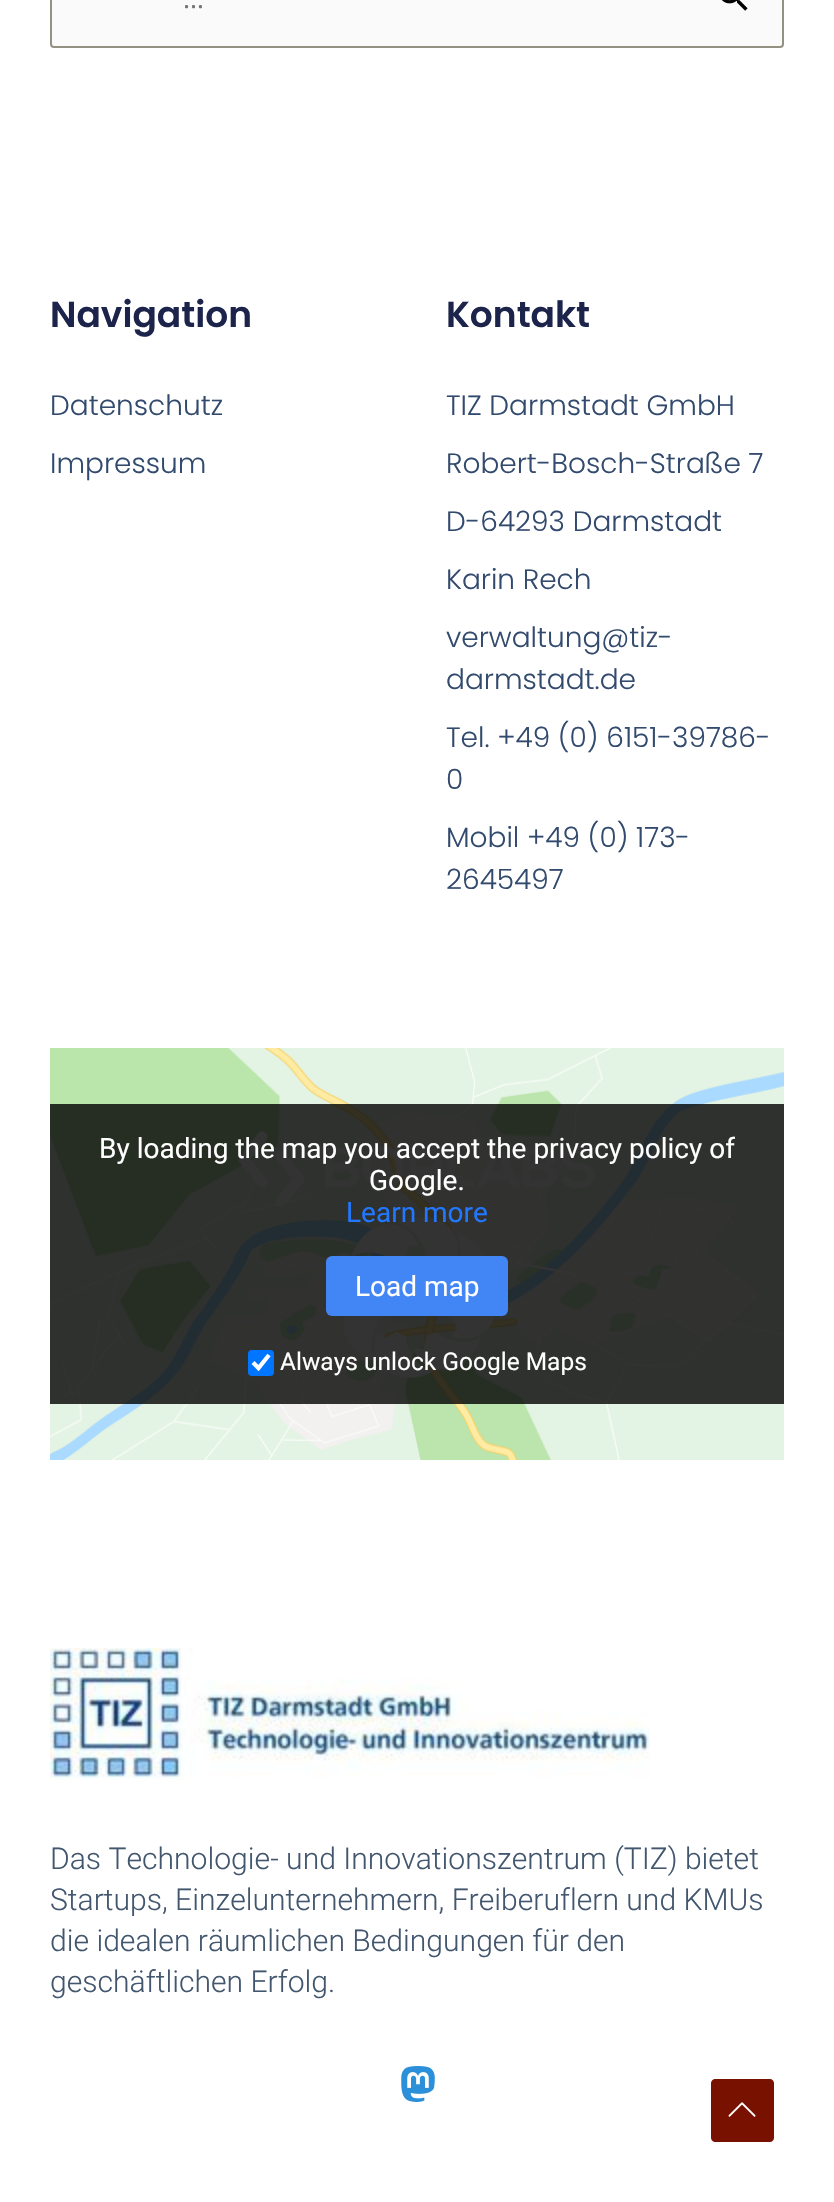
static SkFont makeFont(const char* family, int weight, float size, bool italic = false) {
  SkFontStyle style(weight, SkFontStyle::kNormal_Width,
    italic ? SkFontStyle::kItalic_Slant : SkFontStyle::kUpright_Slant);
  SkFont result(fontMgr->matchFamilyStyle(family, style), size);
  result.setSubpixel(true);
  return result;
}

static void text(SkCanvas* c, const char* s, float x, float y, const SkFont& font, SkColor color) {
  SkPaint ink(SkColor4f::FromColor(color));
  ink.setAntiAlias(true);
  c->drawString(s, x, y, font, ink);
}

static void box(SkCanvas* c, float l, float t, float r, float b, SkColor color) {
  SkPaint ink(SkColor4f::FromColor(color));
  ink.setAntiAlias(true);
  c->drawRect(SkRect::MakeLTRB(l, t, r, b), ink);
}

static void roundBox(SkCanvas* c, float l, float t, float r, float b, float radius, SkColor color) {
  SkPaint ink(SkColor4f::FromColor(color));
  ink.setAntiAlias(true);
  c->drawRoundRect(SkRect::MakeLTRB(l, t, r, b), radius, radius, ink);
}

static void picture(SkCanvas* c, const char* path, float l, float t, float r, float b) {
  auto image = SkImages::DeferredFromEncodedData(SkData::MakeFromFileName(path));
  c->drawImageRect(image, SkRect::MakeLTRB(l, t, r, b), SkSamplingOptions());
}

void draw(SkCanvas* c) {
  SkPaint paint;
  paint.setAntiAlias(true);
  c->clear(0xffffffff);
  paint.setColor(0xfffafafa);
  c->drawRoundRect(SkRect::MakeLTRB(51, -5, 783, 47), 3, 3, paint);
  paint.setStyle(SkPaint::kStroke_Style);
  paint.setStrokeWidth(2);
  paint.setColor(0xff929182);
  c->drawRoundRect(SkRect::MakeLTRB(51, -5, 783, 47), 3, 3, paint);
  SkFont face1 = makeFont("Open Sans", 400, 27);
  text(c, "…", 183, 8, face1, 0xff757575);
  picture(c, "img_01.png", 721, 0, 748, 11);
  SkFont face2 = makeFont("Poppins", 600, 36);
  text(c, "Navigation", 50, 327, face2, 0xff1c244b);
  SkFont face3 = makeFont("Poppins", 300, 28);
  text(c, "Datenschutz", 50, 415, face3, 0xff324a6d);
  text(c, "Impressum", 50, 473, face3, 0xff324a6d);
  text(c, "Kontakt", 446, 327, face2, 0xff1c244b);
  text(c, "TIZ Darmstadt GmbH", 446, 415, face3, 0xff324a6d);
  text(c, "Robert-Bosch-Straße 7", 446, 473, face3, 0xff324a6d);
  text(c, "D-64293 Darmstadt", 446, 531, face3, 0xff324a6d);
  text(c, "Karin Rech", 446, 589, face3, 0xff324a6d);
  text(c, "verwaltung@tiz-", 446, 647, face3, 0xff324a6d);
  text(c, "darmstadt.de", 446, 689, face3, 0xff324a6d);
  text(c, "Tel. +49 (0) 6151-39786-", 446, 747, face3, 0xff324a6d);
  text(c, "0", 446, 789, face3, 0xff324a6d);
  text(c, "Mobil +49 (0) 173-", 446, 847, face3, 0xff324a6d);
  text(c, "2645497", 446, 889, face3, 0xff324a6d);
  picture(c, "img_02.png", 50, 1048, 784, 1460);
  box(c, 50, 1104, 784, 1404, 0xcc000000);
  SkFont face4 = makeFont("Roboto", 400, 28);
  text(c, "By loading the map you accept the privacy policy of", 99, 1158, face4, 0xffffffff);
  text(c, "Google.", 369, 1190, face4, 0xffffffff);
  text(c, "Learn more", 346, 1222, face4, 0xff2277ff);
  roundBox(c, 326, 1256, 508, 1316, 6, 0xff4285f4);
  text(c, "Load map", 355, 1296, face4, 0xffffffff);
  roundBox(c, 248, 1350, 274, 1376, 4, 0xff0075ff);
  paint.setStrokeWidth(4.2f);
  paint.setColor(0xffffffff);
  c->drawPath(SkPathBuilder().moveTo(253, 1362.5f).lineTo(258.5f, 1368).lineTo(269, 1355).detach(), paint);
  SkFont face5 = makeFont("Roboto", 400, 24.5f);
  text(c, "Always unlock Google Maps", 280, 1370, face5, 0xffffffff);
  picture(c, "img_03.png", 50, 1648, 650, 1780);
  SkFont face6 = makeFont("Roboto", 300, 30.1f);
  text(c, "Das Technologie- und Innovationszentrum (TIZ) bietet", 50, 1869, face6, 0xff42566e);
  text(c, "Startups, Einzelunternehmern, Freiberuflern und KMUs", 50, 1910, face6, 0xff42566e);
  text(c, "die idealen räumlichen Bedingungen für den", 50, 1951, face6, 0xff42566e);
  text(c, "geschäftlichen Erfolg.", 50, 1992, face6, 0xff42566e);
  picture(c, "img_04.png", 401, 2066, 435, 2102);
  paint.setStyle(SkPaint::kFill_Style);
  paint.setColor(0xff791100);
  c->drawPath(SkPathBuilder().moveTo(770, 2142).lineTo(715, 2142).cubicTo(713, 2142, 711, 2140, 711, 2138).lineTo(711, 2083).cubicTo(711, 2081, 713, 2079, 715, 2079).lineTo(770, 2079).cubicTo(772, 2079, 774, 2081, 774, 2083).lineTo(774, 2138).cubicTo(774, 2140, 772, 2142, 770, 2142).close().detach(), paint);
  picture(c, "img_05.png", 728, 2102, 756, 2117);
}
